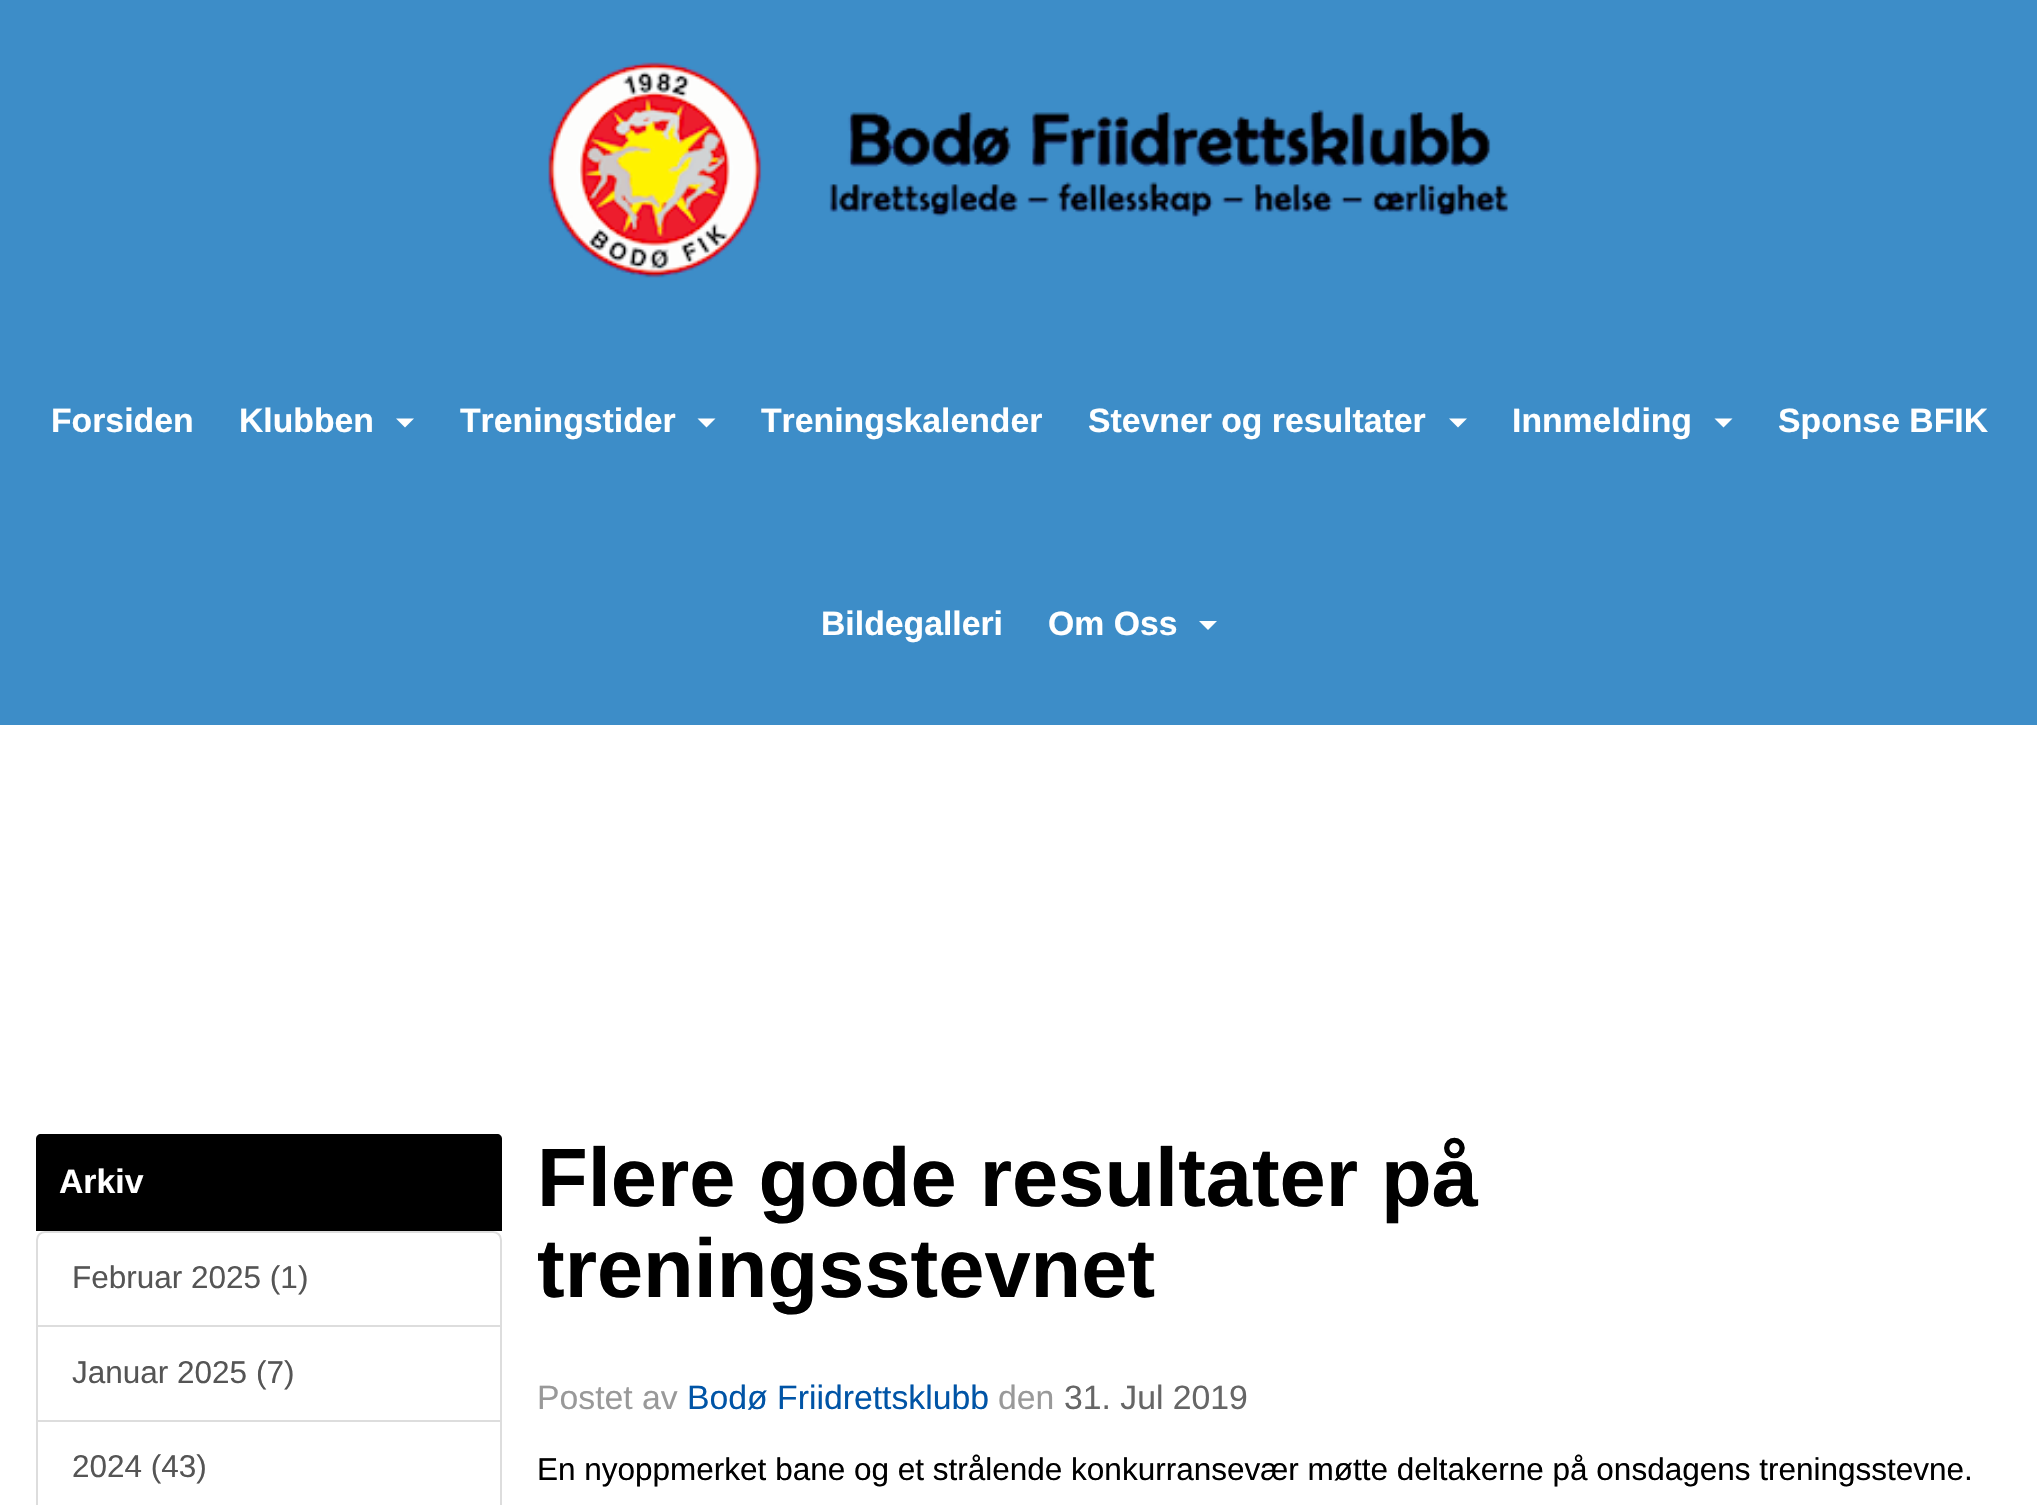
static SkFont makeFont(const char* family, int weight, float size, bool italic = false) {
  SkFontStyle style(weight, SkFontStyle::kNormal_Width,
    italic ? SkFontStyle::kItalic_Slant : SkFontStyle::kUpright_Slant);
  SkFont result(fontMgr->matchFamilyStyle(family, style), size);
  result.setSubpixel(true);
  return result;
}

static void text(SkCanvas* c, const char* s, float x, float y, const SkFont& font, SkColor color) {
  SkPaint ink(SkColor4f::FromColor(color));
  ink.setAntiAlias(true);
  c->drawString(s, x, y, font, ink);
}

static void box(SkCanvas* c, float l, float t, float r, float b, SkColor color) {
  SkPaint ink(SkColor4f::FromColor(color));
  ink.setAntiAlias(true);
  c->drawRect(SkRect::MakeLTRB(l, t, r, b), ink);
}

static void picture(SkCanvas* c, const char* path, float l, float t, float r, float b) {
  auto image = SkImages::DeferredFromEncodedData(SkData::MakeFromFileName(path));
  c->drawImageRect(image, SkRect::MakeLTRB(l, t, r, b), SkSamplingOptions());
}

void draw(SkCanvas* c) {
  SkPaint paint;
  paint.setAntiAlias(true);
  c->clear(0xffffffff);
  box(c, 0, 0, 2037, 725, 0xff3d8dc8);
  picture(c, "img_01.png", 548, 62, 1509, 278);
  SkFont face1 = makeFont("Liberation Sans", 700, 33.75f);
  text(c, "Forsiden", 51, 432, face1, 0xffffffff);
  text(c, "Klubben", 239, 432, face1, 0xffffffff);
  paint.setColor(0xffffffff);
  c->drawPath(SkPathBuilder().moveTo(396, 418.5f).lineTo(414, 418.5f).lineTo(405, 427.5f).close().detach(), paint);
  text(c, "Treningstider", 460, 432, face1, 0xffffffff);
  c->drawPath(SkPathBuilder().moveTo(697.5f, 418.5f).lineTo(715.5f, 418.5f).lineTo(706.5f, 427.5f).close().detach(), paint);
  text(c, "Treningskalender", 761, 432, face1, 0xffffffff);
  text(c, "Stevner og resultater", 1088, 432, face1, 0xffffffff);
  c->drawPath(SkPathBuilder().moveTo(1449, 418.5f).lineTo(1467, 418.5f).lineTo(1458, 427.5f).close().detach(), paint);
  text(c, "Innmelding", 1512, 432, face1, 0xffffffff);
  c->drawPath(SkPathBuilder().moveTo(1714.5f, 418.5f).lineTo(1732.5f, 418.5f).lineTo(1723.5f, 427.5f).close().detach(), paint);
  text(c, "Sponse BFIK", 1778, 432, face1, 0xffffffff);
  text(c, "Bildegalleri", 821, 635, face1, 0xffffffff);
  text(c, "Om Oss", 1048, 635, face1, 0xffffffff);
  c->drawPath(SkPathBuilder().moveTo(1199, 621).lineTo(1217, 621).lineTo(1208, 630).close().detach(), paint);
  paint.setColor(0xff000000);
  c->drawPath(SkPathBuilder().moveTo(41, 1134).lineTo(497, 1134).cubicTo(500, 1134, 502, 1136, 502, 1139).lineTo(502, 1231).lineTo(36, 1231).lineTo(36, 1139).cubicTo(36, 1136, 38, 1134, 41, 1134).close().detach(), paint);
  text(c, "Arkiv", 59, 1193, face1, 0xffffffff);
  paint.setStyle(SkPaint::kStroke_Style);
  paint.setStrokeWidth(2);
  paint.setColor(0xffdddddd);
  c->drawPath(SkPathBuilder().moveTo(45, 1232).lineTo(493, 1232).cubicTo(497.5f, 1232, 501, 1235.5f, 501, 1240).lineTo(501, 1327).lineTo(37, 1327).lineTo(37, 1240).cubicTo(37, 1235.5f, 40.5f, 1232, 45, 1232).close().detach(), paint);
  SkFont face2 = makeFont("Liberation Sans", 400, 31.5f);
  text(c, "Februar 2025 (1)", 72, 1288, face2, 0xff555555);
  box(c, 38, 1327, 500, 1328, 0xffffffff);
  c->drawRect(SkRect::MakeLTRB(37, 1326, 501, 1421), paint);
  text(c, "Januar 2025 (7)", 72, 1383, face2, 0xff555555);
  c->drawRect(SkRect::MakeLTRB(37, 1421, 501, 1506), paint);
  text(c, "2024 (43)", 72, 1477, face2, 0xff555555);
  SkFont face3 = makeFont("Liberation Sans", 700, 83);
  text(c, "Flere gode resultater på", 537, 1206, face3, 0xff000000);
  text(c, "treningsstevnet", 537, 1297, face3, 0xff000000);
  SkFont face4 = makeFont("Liberation Sans", 400, 33.75f);
  text(c, "Postet av", 537, 1409, face4, 0xff999999);
  text(c, "Bodø Friidrettsklubb", 687, 1409, face4, 0xff0054a6);
  text(c, "den", 998, 1409, face4, 0xff999999);
  text(c, "31. Jul 2019", 1064, 1409, face4, 0xff666666);
  text(c, "En nyoppmerket bane og et strålende konkurransevær møtte deltakerne på onsdagens treningsstevne.", 537, 1480, face2, 0xff000000);
}
